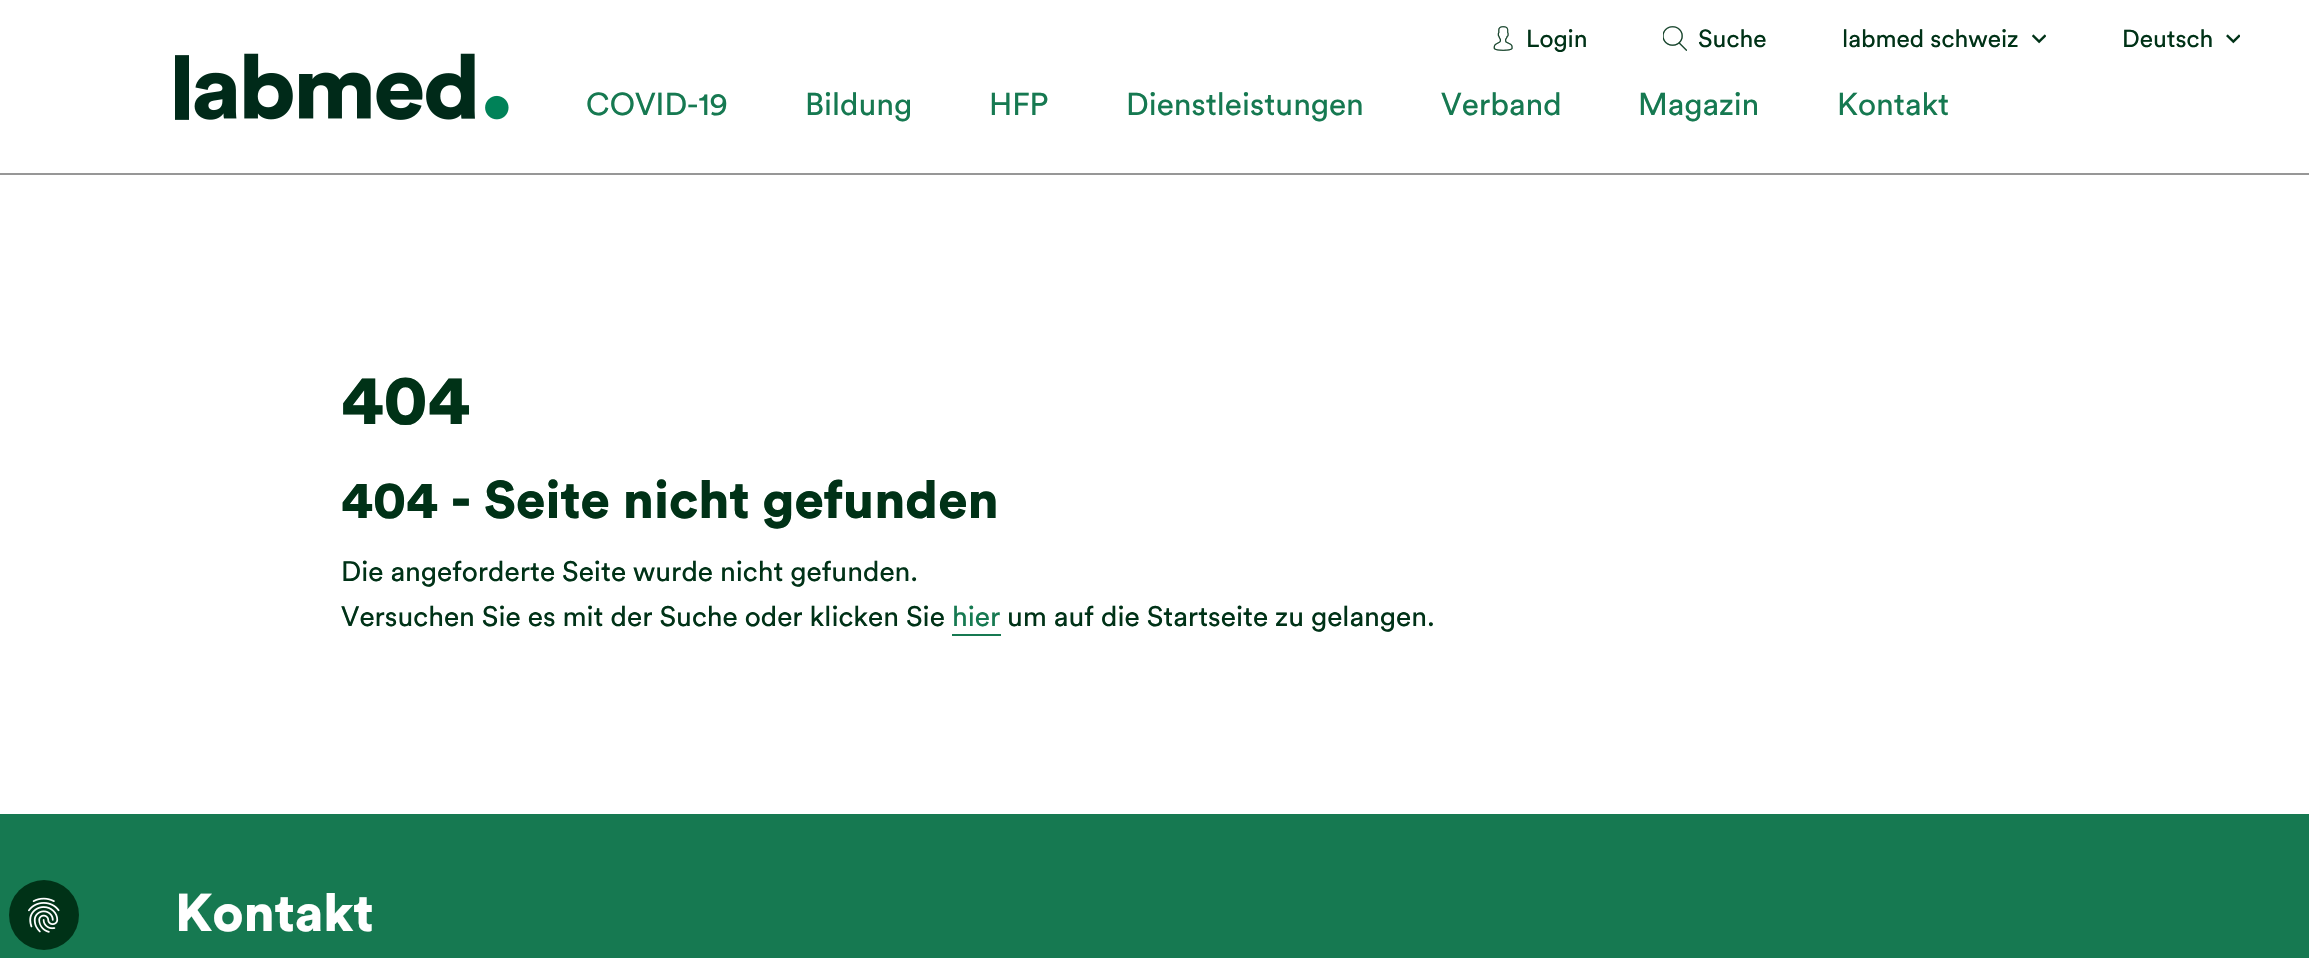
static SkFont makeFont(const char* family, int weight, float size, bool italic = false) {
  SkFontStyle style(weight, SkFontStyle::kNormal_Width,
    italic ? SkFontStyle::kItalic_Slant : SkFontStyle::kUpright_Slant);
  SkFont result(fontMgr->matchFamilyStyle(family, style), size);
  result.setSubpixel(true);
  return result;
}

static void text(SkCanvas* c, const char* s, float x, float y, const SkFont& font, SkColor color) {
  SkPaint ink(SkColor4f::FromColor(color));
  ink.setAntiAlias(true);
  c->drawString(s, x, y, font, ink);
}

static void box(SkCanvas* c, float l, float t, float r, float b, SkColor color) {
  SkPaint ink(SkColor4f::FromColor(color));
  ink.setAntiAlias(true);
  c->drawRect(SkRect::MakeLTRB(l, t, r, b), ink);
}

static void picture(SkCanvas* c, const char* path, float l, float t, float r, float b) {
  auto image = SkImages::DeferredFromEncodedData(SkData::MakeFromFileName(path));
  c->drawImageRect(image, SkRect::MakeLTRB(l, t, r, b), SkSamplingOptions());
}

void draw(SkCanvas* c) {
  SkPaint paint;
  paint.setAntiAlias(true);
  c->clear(0xffffffff);
  box(c, 0, 173, 2309, 175, 0xff979797);
  picture(c, "img_01.png", 1493, 26, 1513, 51);
  SkFont face1 = makeFont("Circular", 400, 24.5f);
  text(c, "Login", 1526, 47, face1, 0xff003217);
  picture(c, "img_02.png", 1663, 26, 1687, 51);
  text(c, "Suche", 1698, 47, face1, 0xff003217);
  picture(c, "img_03.png", 2032, 34, 2046, 44);
  text(c, "labmed schweiz", 1842, 47, face1, 0xff003217);
  picture(c, "img_04.png", 2226, 34, 2240, 44);
  text(c, "Deutsch", 2122, 47, face1, 0xff003217);
  picture(c, "img_05.png", 175, 53, 509, 120);
  SkFont face2 = makeFont("Circular", 400, 31.5f);
  text(c, "COVID-19", 586, 115, face2, 0xff167951);
  text(c, "Bildung", 805, 115, face2, 0xff167951);
  text(c, "HFP", 989, 115, face2, 0xff167951);
  text(c, "Dienstleistungen", 1126, 115, face2, 0xff167951);
  text(c, "Verband", 1441, 115, face2, 0xff167951);
  text(c, "Magazin", 1638, 115, face2, 0xff167951);
  text(c, "Kontakt", 1837, 115, face2, 0xff167951);
  box(c, 0, 814, 2309, 958, 0xff167951);
  paint.setColor(0xff003217);
  c->drawCircle(44, 915, 35, paint);
  picture(c, "img_06.png", 28, 897, 60, 933);
  SkFont face3 = makeFont("Circular", 900, 70);
  text(c, "404", 341, 424, face3, 0xff003217);
  SkFont face4 = makeFont("Circular", 900, 52.5f);
  text(c, "404 - Seite nicht gefunden", 341, 518, face4, 0xff003217);
  SkFont face5 = makeFont("Circular", 400, 28);
  text(c, "Die angeforderte Seite wurde nicht gefunden.", 341, 581, face5, 0xff003217);
  text(c, "Versuchen Sie es mit der Suche oder klicken Sie", 341, 626, face5, 0xff003217);
  text(c, "hier", 952, 626, face5, 0xff167951);
  box(c, 952, 634, 1001, 636, 0xff167951);
  text(c, "um auf die Startseite zu gelangen.", 1007, 626, face5, 0xff003217);
  text(c, "Kontakt", 175, 931, face4, 0xffffffff);
}
